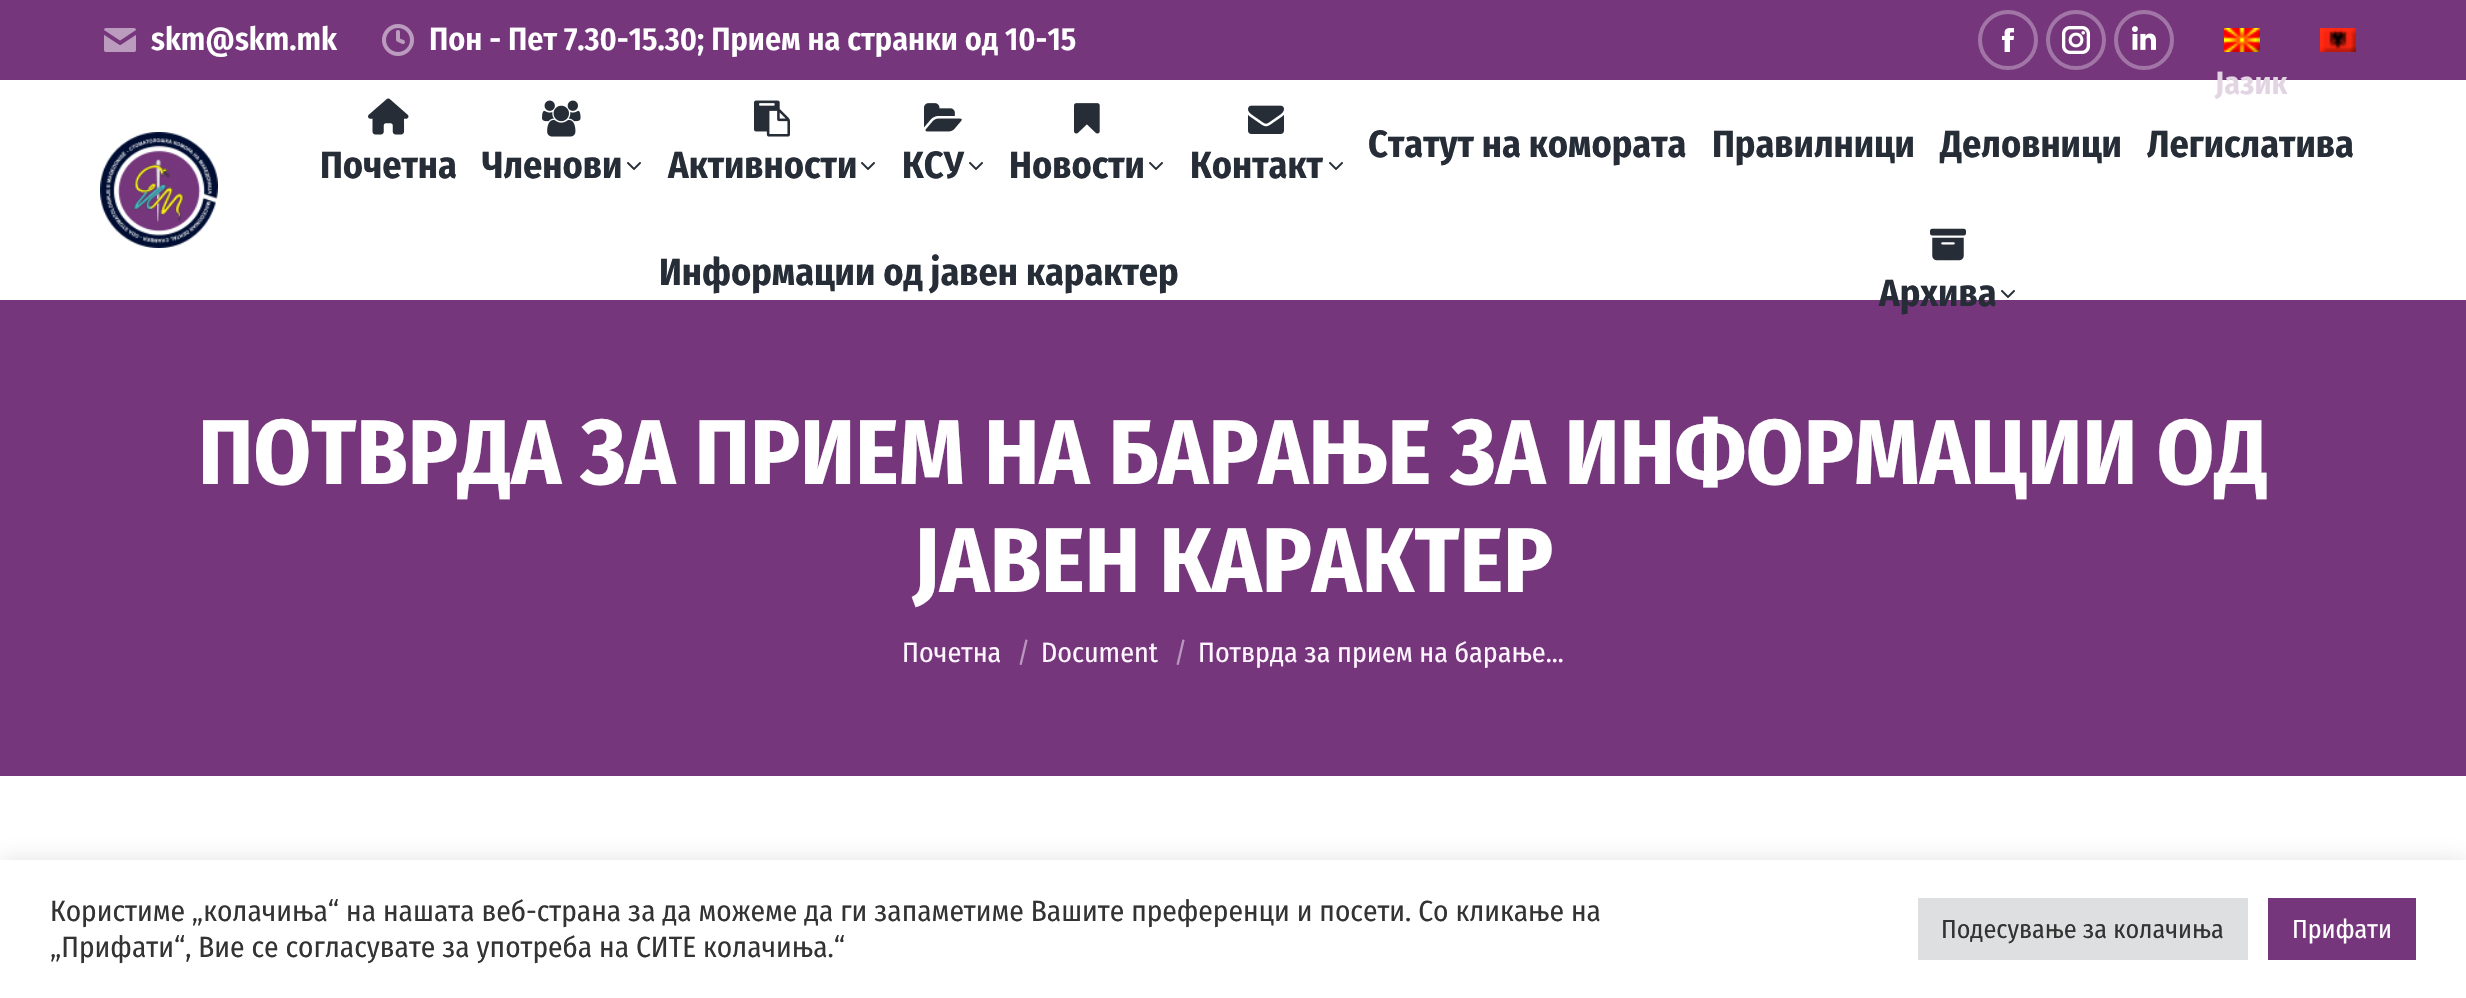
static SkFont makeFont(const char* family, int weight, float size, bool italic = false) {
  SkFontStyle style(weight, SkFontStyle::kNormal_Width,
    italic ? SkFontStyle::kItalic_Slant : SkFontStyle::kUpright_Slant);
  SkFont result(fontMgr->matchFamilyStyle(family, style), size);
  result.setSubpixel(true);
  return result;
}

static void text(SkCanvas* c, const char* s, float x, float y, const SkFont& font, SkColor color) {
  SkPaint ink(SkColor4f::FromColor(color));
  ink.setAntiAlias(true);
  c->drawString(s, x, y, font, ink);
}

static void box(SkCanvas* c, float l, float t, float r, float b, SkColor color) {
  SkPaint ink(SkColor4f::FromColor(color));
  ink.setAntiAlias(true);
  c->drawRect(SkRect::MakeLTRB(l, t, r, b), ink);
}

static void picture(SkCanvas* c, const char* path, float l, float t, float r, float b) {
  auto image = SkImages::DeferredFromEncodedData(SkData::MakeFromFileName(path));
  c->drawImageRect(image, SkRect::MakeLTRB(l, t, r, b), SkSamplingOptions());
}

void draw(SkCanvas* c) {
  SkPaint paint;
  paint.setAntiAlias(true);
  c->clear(0xffffffff);
  box(c, 0, 0, 2466, 80, 0xff75367c);
  picture(c, "img_01.png", 104, 28, 136, 52);
  SkFont face1 = makeFont("Fira Sans Condensed", 600, 32);
  text(c, "skm@skm.mk", 151, 50, face1, 0xffffffff);
  picture(c, "img_02.png", 382, 24, 414, 56);
  text(c, "Пон - Пет 7.30-15.30; Прием на странки од 10-15", 429, 50, face1, 0xffffffff);
  paint.setStyle(SkPaint::kStroke_Style);
  paint.setStrokeWidth(4);
  paint.setColor(0xffa176a6);
  c->drawCircle(2008, 40, 28, paint);
  picture(c, "img_03.png", 2001, 28, 2015, 52);
  c->drawCircle(2076, 40, 28, paint);
  picture(c, "img_04.png", 2062, 26, 2090, 54);
  c->drawCircle(2144, 40, 28, paint);
  picture(c, "img_05.png", 2132, 26, 2156, 50);
  picture(c, "img_06.png", 2224, 28, 2260, 52);
  picture(c, "img_07.png", 2320, 28, 2356, 52);
  text(c, "Јазик", 2215, 94, face1, 0xffe2d4e3);
  picture(c, "img_08.png", 100, 132, 218, 248);
  SkFont face2 = makeFont("Fira Sans Condensed", 700, 38);
  text(c, "Статут на комората", 1368, 157, face2, 0xff262d37);
  text(c, "Правилници", 1712, 157, face2, 0xff262d37);
  text(c, "Деловници", 1940, 157, face2, 0xff262d37);
  text(c, "Легислатива", 2147, 157, face2, 0xff262d37);
  picture(c, "img_09.png", 368, 98, 409, 135);
  text(c, "Почетна", 320, 178, face2, 0xff262d37);
  picture(c, "img_10.png", 542, 100, 581, 137);
  text(c, "Членови", 482, 178, face2, 0xff262d37);
  picture(c, "img_11.png", 627, 162, 641, 170);
  picture(c, "img_12.png", 754, 100, 790, 137);
  text(c, "Активности", 668, 178, face2, 0xff262d37);
  picture(c, "img_11.png", 861, 162, 875, 170);
  picture(c, "img_13.png", 924, 103, 962, 132);
  text(c, "КСУ", 902, 178, face2, 0xff262d37);
  picture(c, "img_11.png", 969, 162, 983, 170);
  picture(c, "img_14.png", 1074, 103, 1100, 134);
  text(c, "Новости", 1009, 178, face2, 0xff262d37);
  picture(c, "img_11.png", 1149, 162, 1163, 170);
  picture(c, "img_15.png", 1248, 105, 1284, 134);
  text(c, "Контакт", 1190, 178, face2, 0xff262d37);
  picture(c, "img_11.png", 1329, 162, 1343, 170);
  text(c, "Информации од јавен карактер", 659, 285, face2, 0xff262d37);
  picture(c, "img_16.png", 1930, 228, 1966, 261);
  box(c, 0, 300, 2466, 776, 0xff75367c);
  text(c, "Архива", 1879, 306, face2, 0xff262d37);
  picture(c, "img_11.png", 2001, 290, 2015, 298);
  SkFont face3 = makeFont("Fira Sans Condensed", 700, 92);
  text(c, "ПОТВРДА ЗА ПРИЕМ НА БАРАЊЕ ЗА ИНФОРМАЦИИ ОД", 198, 484, face3, 0xffffffff);
  text(c, "ЈАВЕН КАРАКТЕР", 913, 592, face3, 0xffffffff);
  SkFont face4 = makeFont("Fira Sans Condensed", 400, 28);
  text(c, "Почетна", 902, 662, face4, 0xfffff5ff);
  text(c, "/", 1017, 662, face4, 0xffba96be);
  text(c, "Document", 1041, 662, face4, 0xfffff5ff);
  text(c, "/", 1174, 662, face4, 0xffba96be);
  text(c, "Потврда за прием на барање…", 1198, 662, face4, 0xfffff5ff);
  paint.setStyle(SkPaint::kFill_Style);
  paint.setColor(0x4dacabab);
  paint.setMaskFilter(SkMaskFilter::MakeBlur(kNormal_SkBlurStyle, 10));
  c->drawRect(SkRect::MakeLTRB(0, 858, 2466, 996), paint);
  paint.setMaskFilter(nullptr);
  box(c, 0, 860, 2466, 998, 0xffffffff);
  SkFont face5 = makeFont("Fira Sans Condensed", 400, 29.33f);
  text(c, "Користиме „колачиња“ на нашата веб-страна за да можеме да ги запаметиме Вашите преференци и посети. Со кликање на", 50, 921, face5, 0xff333333);
  text(c, "„Прифати“, Вие се согласувате за употреба на СИТЕ колачиња.“", 50, 957, face5, 0xff333333);
  box(c, 1918, 898, 2248, 960, 0xffdedfe0);
  SkFont face6 = makeFont("Fira Sans Condensed", 400, 26);
  text(c, "Подесување за колачиња", 1941, 938, face6, 0xff333333);
  box(c, 2268, 898, 2416, 960, 0xff75367c);
  text(c, "Прифати", 2292, 938, face6, 0xffffffff);
}
